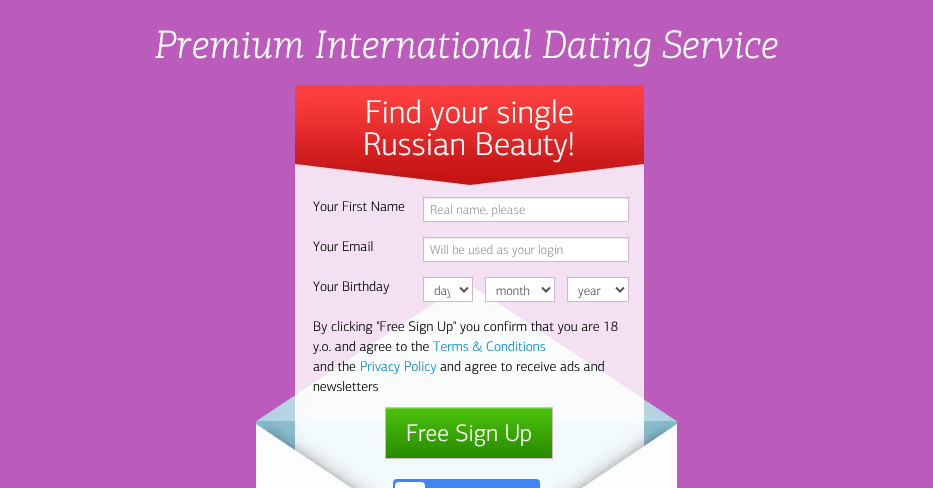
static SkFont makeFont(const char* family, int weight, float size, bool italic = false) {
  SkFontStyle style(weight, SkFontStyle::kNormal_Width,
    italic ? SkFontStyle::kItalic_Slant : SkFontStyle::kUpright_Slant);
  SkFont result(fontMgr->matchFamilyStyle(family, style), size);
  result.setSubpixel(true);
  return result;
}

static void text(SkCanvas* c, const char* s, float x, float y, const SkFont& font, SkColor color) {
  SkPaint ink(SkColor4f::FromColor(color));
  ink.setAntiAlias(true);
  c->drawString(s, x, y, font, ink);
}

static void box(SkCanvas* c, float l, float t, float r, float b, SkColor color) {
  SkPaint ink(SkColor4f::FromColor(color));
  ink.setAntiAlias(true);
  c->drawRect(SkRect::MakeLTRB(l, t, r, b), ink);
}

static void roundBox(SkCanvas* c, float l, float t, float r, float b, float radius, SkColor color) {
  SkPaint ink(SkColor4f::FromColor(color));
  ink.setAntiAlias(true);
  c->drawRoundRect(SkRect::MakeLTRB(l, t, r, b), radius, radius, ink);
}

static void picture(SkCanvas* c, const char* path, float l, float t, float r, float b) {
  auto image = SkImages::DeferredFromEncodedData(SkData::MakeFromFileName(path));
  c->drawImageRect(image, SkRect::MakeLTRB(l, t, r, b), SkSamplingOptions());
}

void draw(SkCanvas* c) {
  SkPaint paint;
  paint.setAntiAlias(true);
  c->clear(0xffbb5cbc);
  SkFont face1 = makeFont("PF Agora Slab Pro", 300, 40, true);
  text(c, "Premium International Dating Service", 155, 58, face1, 0xffffffff);
  picture(c, "img_01.png", 256, 85, 677, 488);
  SkFont face2 = makeFont("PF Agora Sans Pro", 300, 33);
  text(c, "Find your single", 365, 123, face2, 0xffffffff);
  text(c, "Russian Beauty!", 363, 155, face2, 0xffffffff);
  SkFont face3 = makeFont("PF Agora Sans Pro", 300, 14);
  text(c, "Your First Name", 313, 211, face3, 0xff000000);
  box(c, 424, 199, 628, 221, 0xffffffff);
  box(c, 424, 198, 628, 199, 0xffececec);
  paint.setStyle(SkPaint::kStroke_Style);
  paint.setStrokeWidth(1);
  paint.setColor(0xffd3b6ca);
  c->drawRect(SkRect::MakeLTRB(423.5f, 197.5f, 628.5f, 221.5f), paint);
  SkFont face4 = makeFont("PF Agora Sans Pro", 300, 13);
  text(c, "Real name, please", 430, 214, face4, 0xff999999);
  text(c, "Your Email", 313, 251, face3, 0xff000000);
  box(c, 424, 239, 628, 261, 0xffffffff);
  box(c, 424, 238, 628, 239, 0xffececec);
  c->drawRect(SkRect::MakeLTRB(423.5f, 237.5f, 628.5f, 261.5f), paint);
  text(c, "Will be used as your login", 430, 254, face4, 0xff999999);
  text(c, "Your Birthday", 313, 291, face3, 0xff000000);
  paint.setStyle(SkPaint::kFill_Style);
  paint.setColor(0xffffffff);
  c->drawRect(SkRect::MakeLTRB(423.5f, 277.5f, 472.5f, 301.5f), paint);
  paint.setStyle(SkPaint::kStroke_Style);
  paint.setColor(0xffd3b6ca);
  c->drawRect(SkRect::MakeLTRB(423.5f, 277.5f, 472.5f, 301.5f), paint);
  paint.setStrokeWidth(2);
  paint.setColor(0xff555555);
  c->drawPath(SkPathBuilder().moveTo(460, 287.5f).lineTo(464, 291.5f).lineTo(468, 287.5f).detach(), paint);
  c->save();
  c->clipRect(SkRect::MakeLTRB(434, 282, 450, 300));
  text(c, "day", 434, 295, face4, 0xff555555);
  c->restore();
  paint.setStyle(SkPaint::kFill_Style);
  paint.setColor(0xffffffff);
  c->drawRect(SkRect::MakeLTRB(485.5f, 277.5f, 554.5f, 301.5f), paint);
  paint.setStyle(SkPaint::kStroke_Style);
  paint.setStrokeWidth(1);
  paint.setColor(0xffd3b6ca);
  c->drawRect(SkRect::MakeLTRB(485.5f, 277.5f, 554.5f, 301.5f), paint);
  paint.setStrokeWidth(2);
  paint.setColor(0xff555555);
  c->drawPath(SkPathBuilder().moveTo(542, 287.5f).lineTo(546, 291.5f).lineTo(550, 287.5f).detach(), paint);
  text(c, "month", 496, 295, face4, 0xff555555);
  paint.setStyle(SkPaint::kFill_Style);
  paint.setColor(0xffffffff);
  c->drawRect(SkRect::MakeLTRB(567.5f, 277.5f, 628.5f, 301.5f), paint);
  paint.setStyle(SkPaint::kStroke_Style);
  paint.setStrokeWidth(1);
  paint.setColor(0xffd3b6ca);
  c->drawRect(SkRect::MakeLTRB(567.5f, 277.5f, 628.5f, 301.5f), paint);
  paint.setStrokeWidth(2);
  paint.setColor(0xff555555);
  c->drawPath(SkPathBuilder().moveTo(616, 287.5f).lineTo(620, 291.5f).lineTo(624, 287.5f).detach(), paint);
  text(c, "year", 578, 295, face4, 0xff555555);
  text(c, "By clicking \"Free Sign Up\" you confirm that you are 18", 313, 331, face3, 0xff000000);
  text(c, "y.o. and agree to the", 313, 351, face3, 0xff000000);
  text(c, "Terms & Conditions", 433, 351, face3, 0xff0088cc);
  text(c, "and the", 313, 371, face3, 0xff000000);
  text(c, "Privacy Policy", 360, 371, face3, 0xff0088cc);
  text(c, "and agree to receive ads and", 440, 371, face3, 0xff000000);
  text(c, "newsletters", 313, 391, face3, 0xff000000);
  paint.setStyle(SkPaint::kFill_Style);
  {
    const SkColor colors[] = {0xff4bc30a, 0xff288a00};
    const float stops[] = {0, 1};
    const SkPoint ends[] = {{469, 408}, {469, 458}};
    paint.setShader(SkGradientShader::MakeLinear(ends, colors, stops, 2, SkTileMode::kClamp));
    paint.setAlpha(255);
  }
  c->drawRect(SkRect::MakeLTRB(386, 409, 552, 458), paint);
  box(c, 386, 408, 552, 409, 0xff6fce3b);
  paint.setStyle(SkPaint::kStroke_Style);
  paint.setStrokeWidth(1);
  paint.setShader(nullptr);
  paint.setColor(0xffd3b6ca);
  c->drawRect(SkRect::MakeLTRB(385.5f, 407.5f, 552.5f, 458.5f), paint);
  SkFont face5 = makeFont("PF Agora Sans Pro", 300, 24);
  text(c, "Free Sign Up", 406, 441, face5, 0xffffffff);
  paint.setStyle(SkPaint::kFill_Style);
  paint.setColor(0xff4285f4);
  c->drawRoundRect(SkRect::MakeLTRB(394, 480, 539, 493), 3, 3, paint);
  paint.setStyle(SkPaint::kStroke_Style);
  paint.setStrokeWidth(2);
  c->drawRoundRect(SkRect::MakeLTRB(394, 480, 539, 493), 3, 3, paint);
  roundBox(c, 395, 482, 425, 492, 4, 0xffffffff);
}
